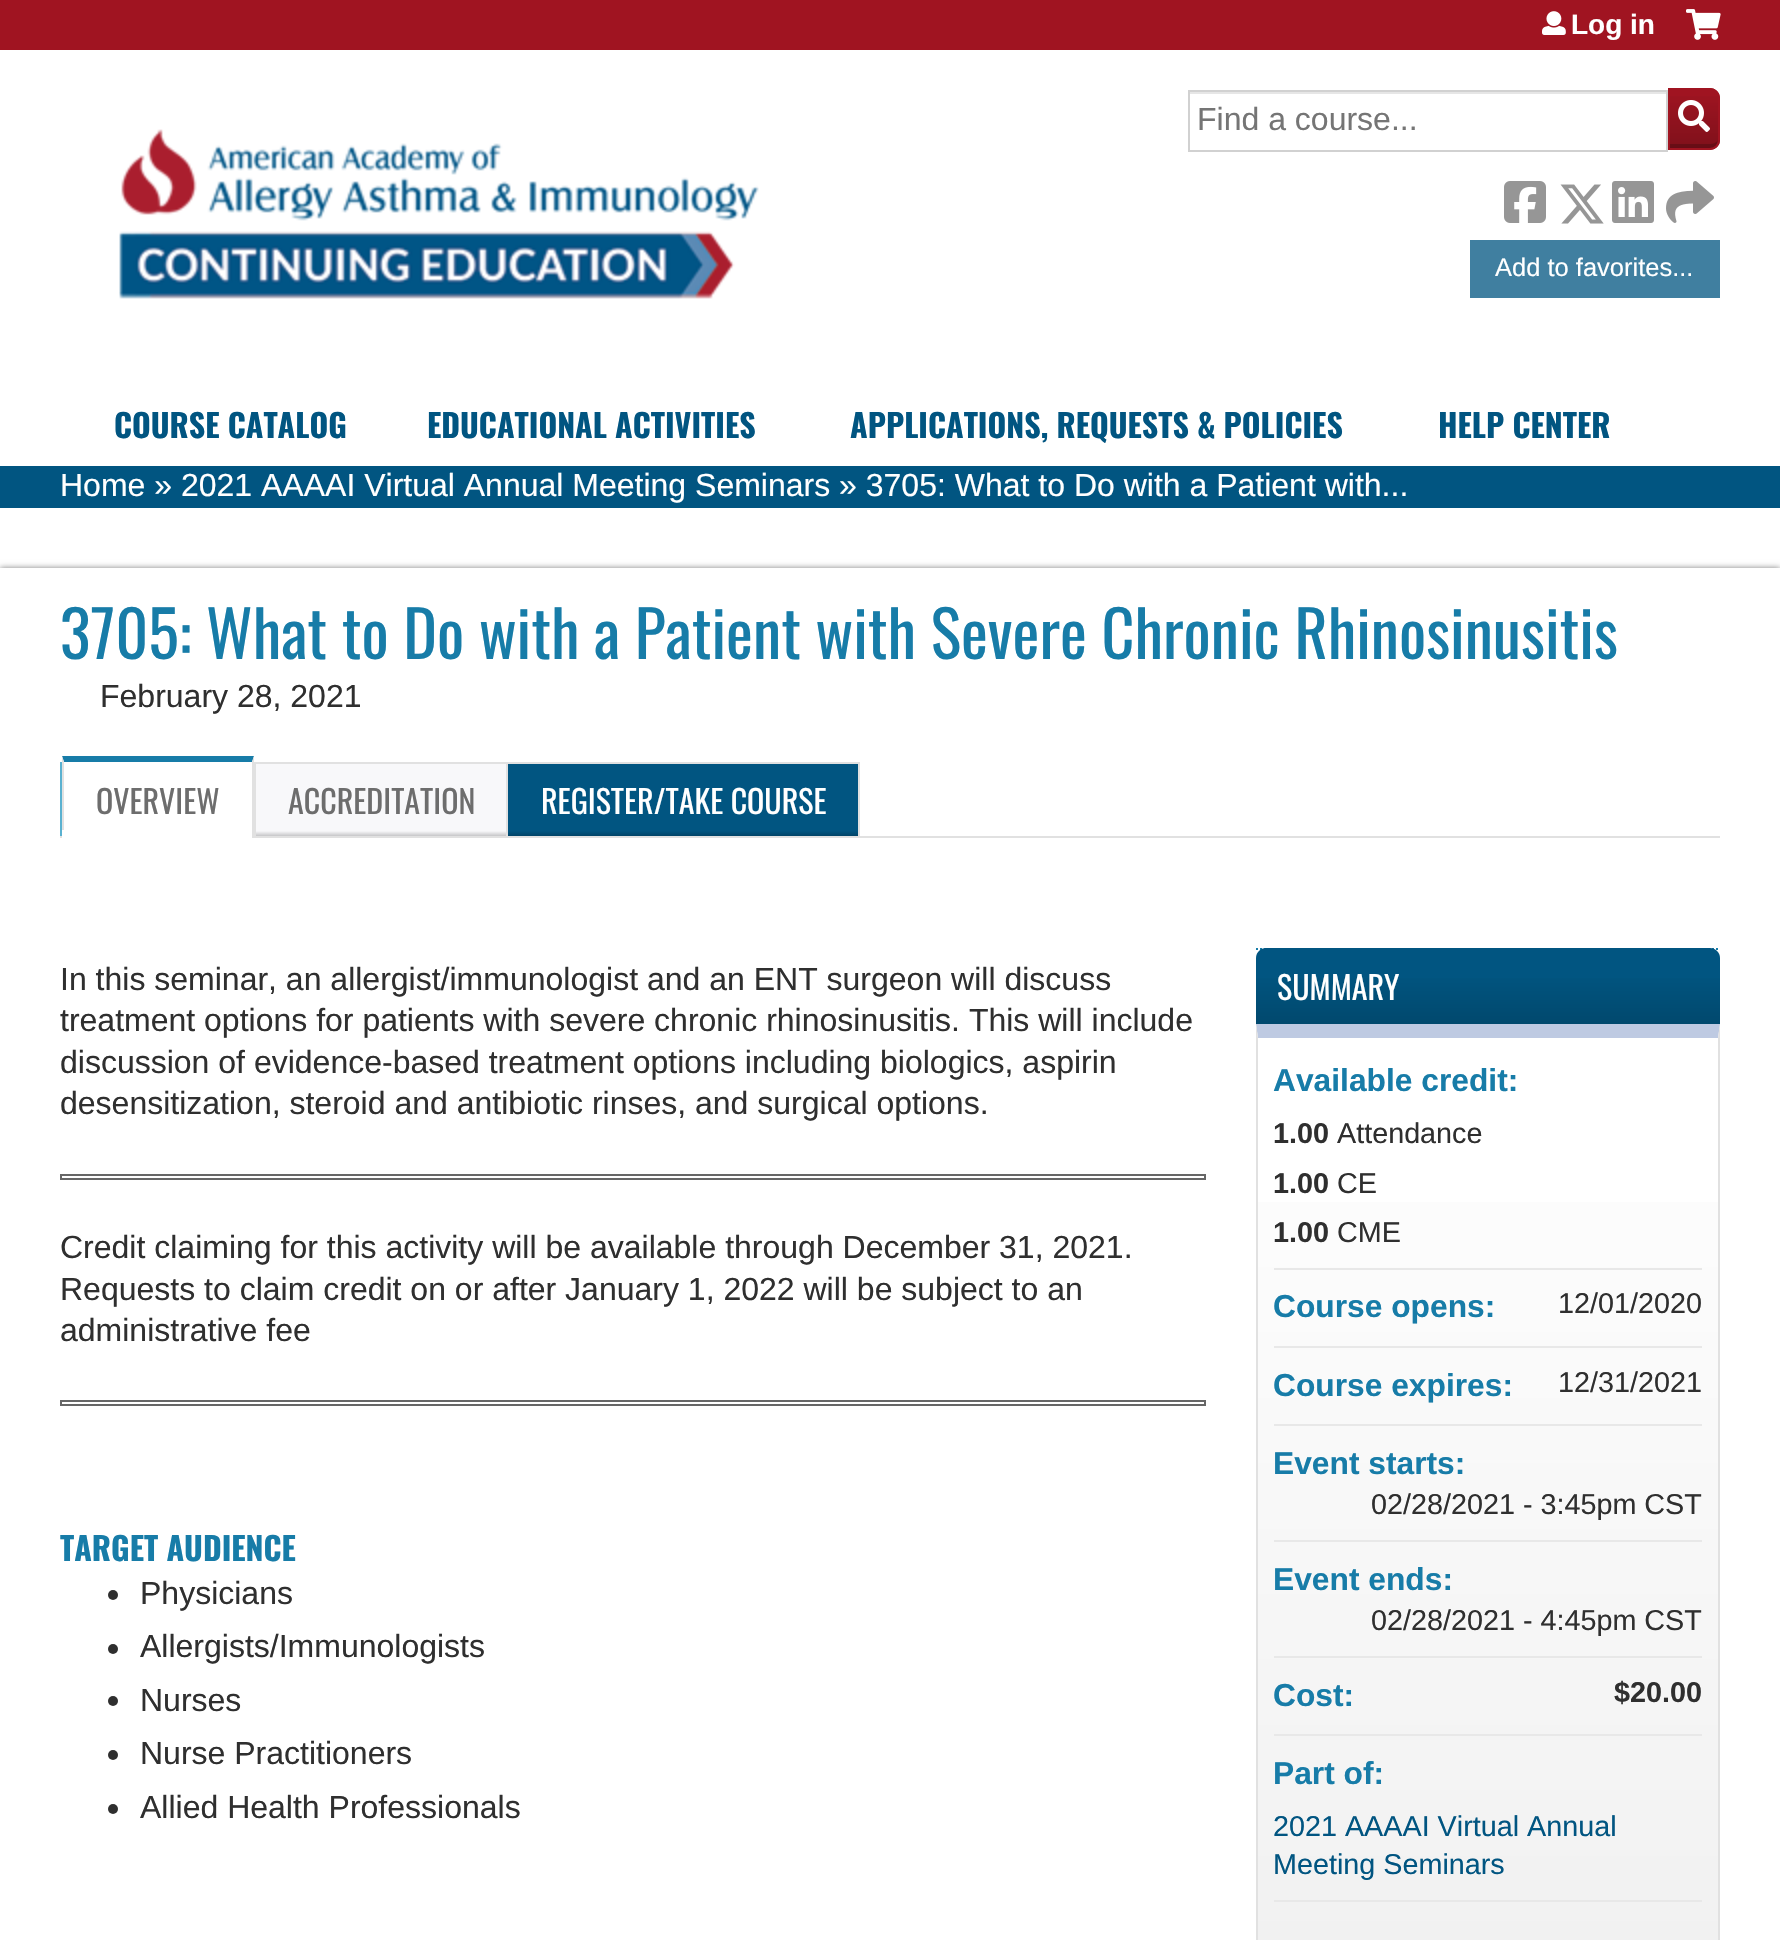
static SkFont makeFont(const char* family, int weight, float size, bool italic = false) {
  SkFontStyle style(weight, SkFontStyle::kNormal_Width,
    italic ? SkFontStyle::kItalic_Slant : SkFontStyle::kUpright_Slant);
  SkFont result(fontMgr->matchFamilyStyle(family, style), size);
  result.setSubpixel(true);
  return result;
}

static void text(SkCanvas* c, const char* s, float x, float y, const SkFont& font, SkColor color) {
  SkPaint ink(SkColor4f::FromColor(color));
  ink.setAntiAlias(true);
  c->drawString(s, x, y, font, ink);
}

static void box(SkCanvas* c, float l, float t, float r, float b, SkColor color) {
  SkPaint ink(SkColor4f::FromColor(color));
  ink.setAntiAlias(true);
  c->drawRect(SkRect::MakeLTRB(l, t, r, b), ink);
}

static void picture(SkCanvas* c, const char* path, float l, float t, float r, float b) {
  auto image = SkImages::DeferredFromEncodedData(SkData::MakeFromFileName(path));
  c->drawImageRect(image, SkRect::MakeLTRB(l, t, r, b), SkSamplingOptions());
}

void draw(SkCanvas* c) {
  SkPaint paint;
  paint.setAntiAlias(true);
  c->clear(0xffffffff);
  box(c, 0, 0, 1780, 50, 0xffa01421);
  picture(c, "img_01.png", 119, 129, 759, 299);
  picture(c, "img_02.png", 1542, 11, 1566, 35);
  SkFont face1 = makeFont("Liberation Sans", 700, 28);
  text(c, "Log in", 1571, 34, face1, 0xffffffff);
  picture(c, "img_03.png", 1686, 9, 1721, 40);
  paint.setColor(0xffa01421);
  c->drawPath(SkPathBuilder().moveTo(1668, 88).lineTo(1710, 88).cubicTo(1715.5f, 88, 1720, 92.5f, 1720, 98).lineTo(1720, 140).cubicTo(1720, 145.5f, 1715.5f, 150, 1710, 150).lineTo(1668, 150).close().detach(), paint);
  c->save();
  c->clipPath(SkPathBuilder().moveTo(1668, 88).lineTo(1710, 88).cubicTo(1715.5f, 88, 1720, 92.5f, 1720, 98).lineTo(1720, 140).cubicTo(1720, 145.5f, 1715.5f, 150, 1710, 150).lineTo(1668, 150).close().detach(), true);
  {
    const SkColor colors[] = {0x33000000, 0x00000000};
    const float stops[] = {0, 1};
    const SkPoint ends[] = {{1694, 148}, {1694, 90}};
    paint.setShader(SkGradientShader::MakeLinear(ends, colors, stops, 2, SkTileMode::kClamp));
    paint.setAlpha(255);
  }
  c->drawRect(SkRect::MakeLTRB(1670, 96, 1720, 148), paint);
  c->restore();
  paint.setShader(nullptr);
  paint.setColor(0x33000000);
  c->drawPath(SkPathBuilder().moveTo(1670, 144).lineTo(1670, 148).lineTo(1710, 148).cubicTo(1714, 148, 1718, 145, 1718, 140).cubicTo(1716, 143, 1713, 144, 1710, 144).close().detach(), paint);
  paint.setStyle(SkPaint::kStroke_Style);
  paint.setStrokeWidth(2);
  paint.setColor(0xffa01421);
  c->drawPath(SkPathBuilder().moveTo(1669, 89).lineTo(1710, 89).cubicTo(1715, 89, 1719, 93, 1719, 98).lineTo(1719, 140).cubicTo(1719, 145, 1715, 149, 1710, 149).lineTo(1669, 149).close().detach(), paint);
  box(c, 1190, 92, 1666, 94, 0xffe6e6e6);
  paint.setColor(0xffd1d1d1);
  c->drawRect(SkRect::MakeLTRB(1189, 91, 1667, 151), paint);
  SkFont face2 = makeFont("Liberation Sans", 400, 32);
  text(c, "Find a course...", 1197, 130, face2, 0xff757575);
  picture(c, "img_04.png", 1678, 100, 1710, 132);
  picture(c, "img_05.png", 1504, 181, 1546, 223);
  picture(c, "img_06.png", 1560, 184, 1604, 224);
  picture(c, "img_07.png", 1612, 181, 1654, 223);
  picture(c, "img_08.png", 1666, 181, 1714, 223);
  box(c, 1470, 240, 1720, 298, 0xff407fa0);
  SkFont face3 = makeFont("Liberation Sans", 400, 25.5f);
  text(c, "Add to favorites...", 1495, 276, face3, 0xffffffff);
  SkFont face4 = makeFont("Oswald", 700, 32);
  text(c, "COURSE CATALOG", 114, 438, face4, 0xff015581);
  text(c, "EDUCATIONAL ACTIVITIES", 427, 438, face4, 0xff015581);
  text(c, "APPLICATIONS, REQUESTS & POLICIES", 850, 438, face4, 0xff015581);
  text(c, "HELP CENTER", 1438, 438, face4, 0xff015581);
  box(c, 0, 466, 1780, 508, 0xff015581);
  text(c, "Home » 2021 AAAAI Virtual Annual Meeting Seminars » 3705: What to Do with a Patient with...", 60, 496, face2, 0xffffffff);
  paint.setStyle(SkPaint::kFill_Style);
  paint.setColor(0x80000000);
  paint.setMaskFilter(SkMaskFilter::MakeBlur(kNormal_SkBlurStyle, 3));
  c->drawRect(SkRect::MakeLTRB(0, 568, 1780, 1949), paint);
  paint.setMaskFilter(nullptr);
  box(c, 0, 568, 1780, 1940, 0xffffffff);
  SkFont face5 = makeFont("Oswald", 400, 64);
  text(c, "3705: What to Do with a Patient with Severe Chronic Rhinosinusitis", 60, 659, face5, 0xff177ca8);
  text(c, "February 28, 2021", 100, 707, face2, 0xff2f2f2f);
  box(c, 60, 836, 1720, 838, 0xffe1e1e1);
  box(c, 60, 762, 62, 836, 0xff5ab1d0);
  paint.setColor(0xff177ca8);
  c->drawPath(SkPathBuilder().moveTo(62, 756).lineTo(254, 756).lineTo(252, 762).lineTo(64, 762).close().detach(), paint);
  paint.setColor(0xffe1e1e1);
  c->drawPath(SkPathBuilder().moveTo(254, 756).lineTo(254, 836).lineTo(252, 836).lineTo(252, 762).close().detach(), paint);
  c->drawPath(SkPathBuilder().moveTo(62, 836).lineTo(62, 756).lineTo(64, 762).lineTo(64, 836).close().detach(), paint);
  SkFont face6 = makeFont("Oswald", 400, 32);
  text(c, "OVERVIEW", 96, 814, face6, 0xff6d6d6d);
  box(c, 62, 830, 252, 838, 0xffffffff);
  {
    const SkColor colors[] = {0xffc6c6c8, 0xfff8f8fa};
    const float stops[] = {0, 0.07f};
    const SkPoint ends[] = {{381, 836}, {381, 764}};
    paint.setShader(SkGradientShader::MakeLinear(ends, colors, stops, 2, SkTileMode::kClamp));
    paint.setAlpha(255);
  }
  c->drawRect(SkRect::MakeLTRB(256, 764, 506, 836), paint);
  box(c, 254, 762, 508, 764, 0xffe1e1e1);
  box(c, 506, 762, 508, 836, 0xffe1e1e1);
  box(c, 254, 762, 256, 836, 0xffe1e1e1);
  text(c, "ACCREDITATION", 288, 814, face6, 0xff6d6d6d);
  {
    const SkColor colors[] = {0xff014467, 0xff015581};
    const float stops[] = {0, 0.07f};
    const SkPoint ends[] = {{683, 836}, {683, 764}};
    paint.setShader(SkGradientShader::MakeLinear(ends, colors, stops, 2, SkTileMode::kClamp));
    paint.setAlpha(255);
  }
  c->drawRect(SkRect::MakeLTRB(508, 764, 858, 836), paint);
  box(c, 506, 762, 860, 764, 0xffe1e1e1);
  box(c, 858, 762, 860, 836, 0xffe1e1e1);
  text(c, "REGISTER/TAKE COURSE", 541, 814, face6, 0xffffffff);
  text(c, "In this seminar, an allergist/immunologist and an ENT surgeon will discuss", 60, 990, face2, 0xff2f2f2f);
  text(c, "treatment options for patients with severe chronic rhinosinusitis. This will include", 60, 1031, face2, 0xff2f2f2f);
  text(c, "discussion of evidence-based treatment options including biologics, aspirin", 60, 1073, face2, 0xff2f2f2f);
  text(c, "desensitization, steroid and antibiotic rinses, and surgical options.", 60, 1114, face2, 0xff2f2f2f);
  paint.setStyle(SkPaint::kStroke_Style);
  paint.setShader(nullptr);
  paint.setColor(0xff666666);
  c->drawRect(SkRect::MakeLTRB(61, 1175, 1205, 1179), paint);
  text(c, "Credit claiming for this activity will be available through December 31, 2021.", 60, 1258, face2, 0xff2f2f2f);
  text(c, "Requests to claim credit on or after January 1, 2022 will be subject to an", 60, 1300, face2, 0xff2f2f2f);
  text(c, "administrative fee", 60, 1341, face2, 0xff2f2f2f);
  c->drawRect(SkRect::MakeLTRB(61, 1401, 1205, 1405), paint);
  text(c, "TARGET AUDIENCE", 60, 1561, face4, 0xff177ca8);
  paint.setStyle(SkPaint::kFill_Style);
  paint.setColor(0xff2f2f2f);
  c->drawCircle(113, 1595, 5, paint);
  text(c, "Physicians", 140, 1604, face2, 0xff2f2f2f);
  c->drawCircle(113, 1649, 5, paint);
  text(c, "Allergists/Immunologists", 140, 1657, face2, 0xff2f2f2f);
  c->drawCircle(113, 1701, 5, paint);
  text(c, "Nurses", 140, 1711, face2, 0xff2f2f2f);
  c->drawCircle(113, 1755, 5, paint);
  text(c, "Nurse Practitioners", 140, 1764, face2, 0xff2f2f2f);
  c->drawCircle(113, 1809, 5, paint);
  text(c, "Allied Health Professionals", 140, 1818, face2, 0xff2f2f2f);
  paint.setStyle(SkPaint::kStroke_Style);
  paint.setColor(0xff177ca8);
  paint.setPathEffect(SkDashPathEffect::Make({{2, 2}}, 0));
  c->drawPath(SkPathBuilder().moveTo(1256, 949).lineTo(1720, 949).detach(), paint);
  paint.setPathEffect(nullptr);
  paint.setStyle(SkPaint::kFill_Style);
  paint.setColor(0xff015581);
  c->drawPath(SkPathBuilder().moveTo(1266, 948).lineTo(1710, 948).cubicTo(1715.5f, 948, 1720, 952.5f, 1720, 958).lineTo(1720, 1024).lineTo(1256, 1024).lineTo(1256, 958).cubicTo(1256, 952.5f, 1260.5f, 948, 1266, 948).close().detach(), paint);
  {
    const SkColor colors[] = {0x26000000, 0x00000000};
    const float stops[] = {0, 0.7f};
    const SkPoint ends[] = {{1488, 1024}, {1488, 948}};
    paint.setShader(SkGradientShader::MakeLinear(ends, colors, stops, 2, SkTileMode::kClamp));
    paint.setAlpha(255);
  }
  c->drawRect(SkRect::MakeLTRB(1256, 978, 1720, 1024), paint);
  text(c, "SUMMARY", 1277, 1000, face6, 0xffffffff);
  {
    const SkColor colors[] = {0xffeeeeee, 0xffffffff};
    const float stops[] = {0, 1};
    const SkPoint ends[] = {{1488, 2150}, {1488, 1038}};
    paint.setShader(SkGradientShader::MakeLinear(ends, colors, stops, 2, SkTileMode::kClamp));
    paint.setAlpha(255);
  }
  c->drawRect(SkRect::MakeLTRB(1258, 1202, 1718, 1940), paint);
  paint.setShader(nullptr);
  paint.setColor(0xffbecae2);
  c->drawPath(SkPathBuilder().moveTo(1256, 1024).lineTo(1720, 1024).lineTo(1718, 1038).lineTo(1258, 1038).close().detach(), paint);
  paint.setColor(0xffe1e1e1);
  c->drawPath(SkPathBuilder().moveTo(1720, 1024).lineTo(1720, 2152).lineTo(1718, 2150).lineTo(1718, 1038).close().detach(), paint);
  c->drawPath(SkPathBuilder().moveTo(1256, 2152).lineTo(1256, 1024).lineTo(1258, 1038).lineTo(1258, 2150).close().detach(), paint);
  box(c, 1274, 1268, 1702, 1270, 0xffe8e8e8);
  SkFont face7 = makeFont("Liberation Sans", 700, 31.75f);
  text(c, "Available credit:", 1273, 1091, face7, 0xff177ca8);
  SkFont face8 = makeFont("Liberation Sans", 700, 28.75f);
  text(c, "1.00", 1273, 1143, face8, 0xff2f2f2f);
  SkFont face9 = makeFont("Liberation Sans", 400, 28.75f);
  text(c, "Attendance", 1337, 1143, face9, 0xff2f2f2f);
  text(c, "1.00", 1273, 1193, face8, 0xff2f2f2f);
  text(c, "CE", 1337, 1193, face9, 0xff2f2f2f);
  text(c, "1.00", 1273, 1242, face8, 0xff2f2f2f);
  text(c, "CME", 1337, 1242, face9, 0xff2f2f2f);
  box(c, 1274, 1346, 1702, 1348, 0xffe8e8e8);
  text(c, "Course opens:", 1273, 1317, face7, 0xff177ca8);
  text(c, "12/01/2020", 1558, 1313, face9, 0xff2f2f2f);
  box(c, 1274, 1424, 1702, 1426, 0xffe8e8e8);
  text(c, "Course expires:", 1273, 1396, face7, 0xff177ca8);
  text(c, "12/31/2021", 1558, 1392, face9, 0xff2f2f2f);
  box(c, 1274, 1540, 1702, 1542, 0xffe8e8e8);
  text(c, "Event starts:", 1273, 1474, face7, 0xff177ca8);
  text(c, "02/28/2021 - 3:45pm CST", 1371, 1514, face9, 0xff2f2f2f);
  box(c, 1274, 1656, 1702, 1658, 0xffe8e8e8);
  text(c, "Event ends:", 1273, 1590, face7, 0xff177ca8);
  text(c, "02/28/2021 - 4:45pm CST", 1371, 1630, face9, 0xff2f2f2f);
  box(c, 1274, 1734, 1702, 1736, 0xffe8e8e8);
  text(c, "Cost:", 1273, 1706, face7, 0xff177ca8);
  text(c, "$20.00", 1614, 1702, face8, 0xff2f2f2f);
  box(c, 1274, 1900, 1702, 1902, 0xffe8e8e8);
  text(c, "Part of:", 1273, 1784, face7, 0xff177ca8);
  text(c, "2021 AAAAI Virtual Annual", 1273, 1836, face9, 0xff015581);
  text(c, "Meeting Seminars", 1273, 1874, face9, 0xff015581);
}
